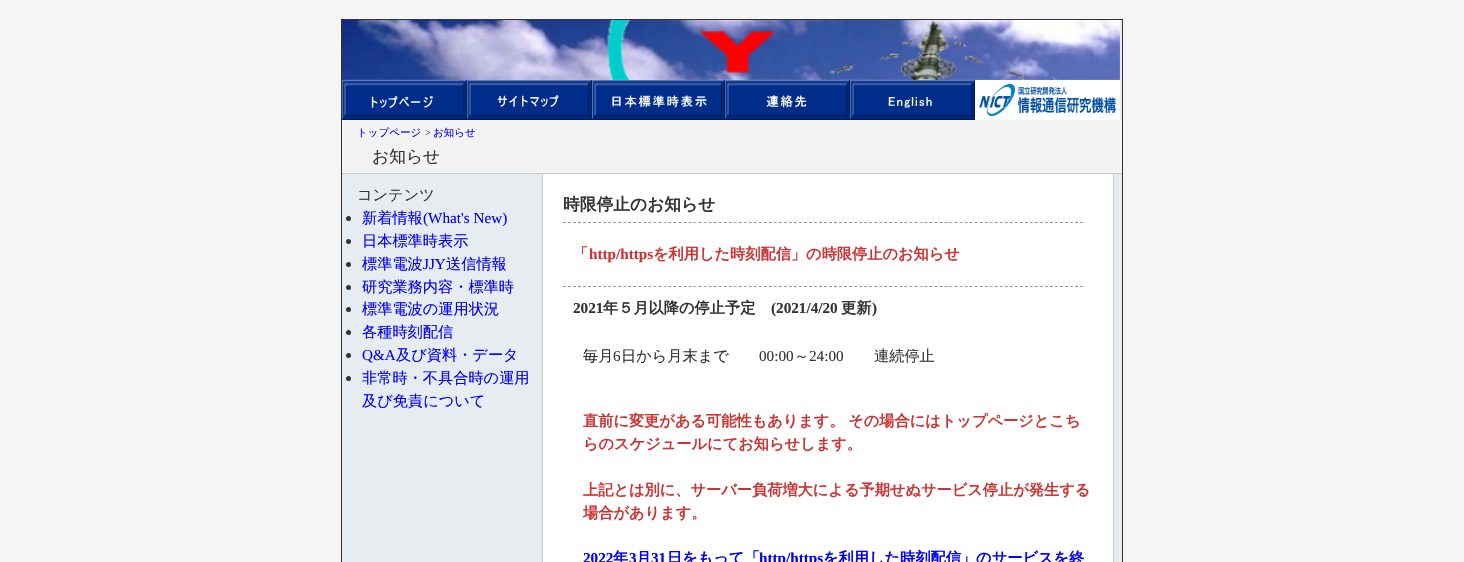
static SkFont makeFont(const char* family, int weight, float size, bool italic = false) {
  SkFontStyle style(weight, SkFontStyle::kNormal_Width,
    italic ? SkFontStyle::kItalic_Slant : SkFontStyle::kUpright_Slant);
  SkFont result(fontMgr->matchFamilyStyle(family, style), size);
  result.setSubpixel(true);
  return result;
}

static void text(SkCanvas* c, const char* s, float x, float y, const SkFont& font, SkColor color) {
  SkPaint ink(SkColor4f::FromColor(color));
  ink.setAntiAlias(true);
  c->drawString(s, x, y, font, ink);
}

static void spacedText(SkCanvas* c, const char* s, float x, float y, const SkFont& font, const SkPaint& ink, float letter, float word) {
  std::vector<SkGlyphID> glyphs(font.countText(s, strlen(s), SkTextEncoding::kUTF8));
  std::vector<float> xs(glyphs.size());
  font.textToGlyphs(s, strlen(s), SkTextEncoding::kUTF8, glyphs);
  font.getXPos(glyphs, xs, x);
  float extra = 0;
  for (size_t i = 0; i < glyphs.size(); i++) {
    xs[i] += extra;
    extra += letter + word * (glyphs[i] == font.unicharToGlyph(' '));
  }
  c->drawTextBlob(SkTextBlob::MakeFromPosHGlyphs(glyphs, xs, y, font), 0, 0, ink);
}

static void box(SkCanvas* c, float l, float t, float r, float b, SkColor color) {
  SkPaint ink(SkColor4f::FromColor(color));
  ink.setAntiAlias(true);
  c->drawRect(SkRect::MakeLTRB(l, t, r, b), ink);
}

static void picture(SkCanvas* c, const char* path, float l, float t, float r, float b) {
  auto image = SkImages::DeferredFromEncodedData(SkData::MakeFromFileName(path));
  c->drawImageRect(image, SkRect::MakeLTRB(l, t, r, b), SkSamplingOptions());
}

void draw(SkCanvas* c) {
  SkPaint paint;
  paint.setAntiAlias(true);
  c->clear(0xfff5f5f5);
  paint.setColor(0xffe7ecf1);
  c->drawRect(SkRect::MakeLTRB(341.5f, 19.5f, 1122.5f, 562.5f), paint);
  paint.setStyle(SkPaint::kStroke_Style);
  paint.setStrokeWidth(1);
  paint.setColor(0xff333333);
  c->drawRect(SkRect::MakeLTRB(341.5f, 19.5f, 1122.5f, 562.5f), paint);
  picture(c, "img_01.png", 342, 20, 1120, 80);
  picture(c, "img_02.png", 342, 80, 467, 120);
  picture(c, "img_03.png", 467, 80, 592, 120);
  picture(c, "img_04.png", 592, 80, 725, 120);
  picture(c, "img_05.png", 725, 80, 850, 120);
  picture(c, "img_06.png", 850, 80, 975, 120);
  picture(c, "img_07.png", 975, 80, 1120, 120);
  box(c, 342, 120, 1122, 173, 0xfff3f3f3);
  box(c, 342, 173, 1122, 174, 0xffcccccc);
  SkFont face1 = makeFont("WenQuanYi Zen Hei", 500, 10.5f);
  text(c, "トップページ", 357, 136, face1, 0xff0000ff);
  SkFont face2 = makeFont("Liberation Serif", 400, 10.5f);
  text(c, ">", 425, 136, face2, 0xff333333);
  text(c, "お知らせ", 433, 136, face1, 0xff0000ff);
  SkFont face3 = makeFont("WenQuanYi Zen Hei", 500, 16.75f);
  text(c, "お知らせ", 372, 162, face3, 0xff333333);
  SkFont face4 = makeFont("WenQuanYi Zen Hei", 500, 15.2f);
  text(c, "コンテンツ", 357, 200, face4, 0xff333333);
  paint.setStyle(SkPaint::kFill_Style);
  c->drawCircle(348.5f, 218.5f, 2.5f, paint);
  text(c, "新着情報", 362, 223, face4, 0xff0000ff);
  SkFont face5 = makeFont("Liberation Serif", 400, 15.2f);
  text(c, "(What's New)", 423, 223, face5, 0xff0000ff);
  c->drawCircle(348.5f, 241.5f, 2.5f, paint);
  text(c, "日本標準時表示", 362, 246, face4, 0xff0000ff);
  c->drawCircle(348.5f, 264.5f, 2.5f, paint);
  text(c, "標準電波", 362, 269, face4, 0xff0000ff);
  text(c, "JJY", 423, 269, face5, 0xff0000ff);
  text(c, "送信情報", 446, 269, face4, 0xff0000ff);
  c->drawCircle(348.5f, 287.5f, 2.5f, paint);
  text(c, "研究業務内容・標準時", 362, 292, face4, 0xff0000ff);
  c->drawCircle(348.5f, 309.5f, 2.5f, paint);
  text(c, "標準電波の運用状況", 362, 314, face4, 0xff0000ff);
  c->drawCircle(348.5f, 332.5f, 2.5f, paint);
  text(c, "各種時刻配信", 362, 337, face4, 0xff0000ff);
  c->drawCircle(348.5f, 355.5f, 2.5f, paint);
  text(c, "Q&A", 362, 360, face5, 0xff0000ff);
  text(c, "及び資料・データ", 396, 360, face4, 0xff0000ff);
  c->drawCircle(348.5f, 378.5f, 2.5f, paint);
  text(c, "非常時・不具合時の運用", 362, 383, face4, 0xff0000ff);
  text(c, "及び免責について", 362, 406, face4, 0xff0000ff);
  box(c, 543, 174, 1113, 562, 0xffffffff);
  box(c, 1113, 174, 1114, 562, 0xffcccccc);
  box(c, 542, 174, 543, 562, 0xffcccccc);
  paint.setStyle(SkPaint::kStroke_Style);
  paint.setColor(0xff999999);
  paint.setPathEffect(SkDashPathEffect::Make({{3, 2.02f}}, 0));
  c->drawPath(SkPathBuilder().moveTo(563, 222.5f).lineTo(1083, 222.5f).detach(), paint);
  paint.setPathEffect(nullptr);
  SkFont face6 = makeFont("WenQuanYi Zen Hei", 700, 16.75f);
  text(c, "時限停止のお知らせ", 563, 210, face6, 0xff333333);
  SkFont face7 = makeFont("WenQuanYi Zen Hei", 700, 15.2f);
  text(c, "「", 573, 259, face7, 0xffcc3333);
  SkFont face8 = makeFont("Liberation Serif", 700, 15.2f);
  text(c, "http/https", 589, 259, face8, 0xffcc3333);
  text(c, "を利用した時刻配信」の時限停止のお知らせ", 653, 259, face7, 0xffcc3333);
  paint.setPathEffect(SkDashPathEffect::Make({{3, 2.02f}}, 0));
  c->drawPath(SkPathBuilder().moveTo(563, 286.5f).lineTo(1083, 286.5f).detach(), paint);
  paint.setPathEffect(nullptr);
  text(c, "2021", 573, 313, face8, 0xff333333);
  text(c, "年５月以降の停止予定", 603, 313, face7, 0xff333333);
  text(c, "(2021/4/20", 771, 313, face8, 0xff333333);
  text(c, "更新", 841, 313, face7, 0xff333333);
  text(c, ")", 872, 313, face8, 0xff333333);
  text(c, "毎月", 583, 361, face4, 0xff333333);
  text(c, "6", 613, 361, face5, 0xff333333);
  text(c, "日から月末まで", 621, 361, face4, 0xff333333);
  text(c, "00:00", 759, 361, face5, 0xff333333);
  text(c, "～", 794, 361, face4, 0xff333333);
  text(c, "24:00", 809, 361, face5, 0xff333333);
  text(c, "連続停止", 874, 361, face4, 0xff333333);
  paint.setStyle(SkPaint::kFill_Style);
  paint.setColor(0xffcc3333);
  spacedText(c, "直前に変更がある可能性もあります。 その場合にはトップページとこち", 583, 426, face7, paint, 0, -1);
  text(c, "らのスケジュールにてお知らせします。", 583, 449, face7, 0xffcc3333);
  text(c, "上記とは別に、サーバー負荷増大による予期せぬサービス停止が発生する", 583, 495, face7, 0xffcc3333);
  text(c, "場合があります。", 583, 518, face7, 0xffcc3333);
  text(c, "2022", 583, 563, face8, 0xff0000ff);
  text(c, "年", 613, 563, face7, 0xff0000ff);
  text(c, "3", 629, 563, face8, 0xff0000ff);
  text(c, "月", 636, 563, face7, 0xff0000ff);
  text(c, "31", 651, 563, face8, 0xff0000ff);
  text(c, "日をもって「", 667, 563, face7, 0xff0000ff);
  text(c, "http/https", 759, 563, face8, 0xff0000ff);
  text(c, "を利用した時刻配信」のサービスを終", 823, 563, face7, 0xff0000ff);
}
